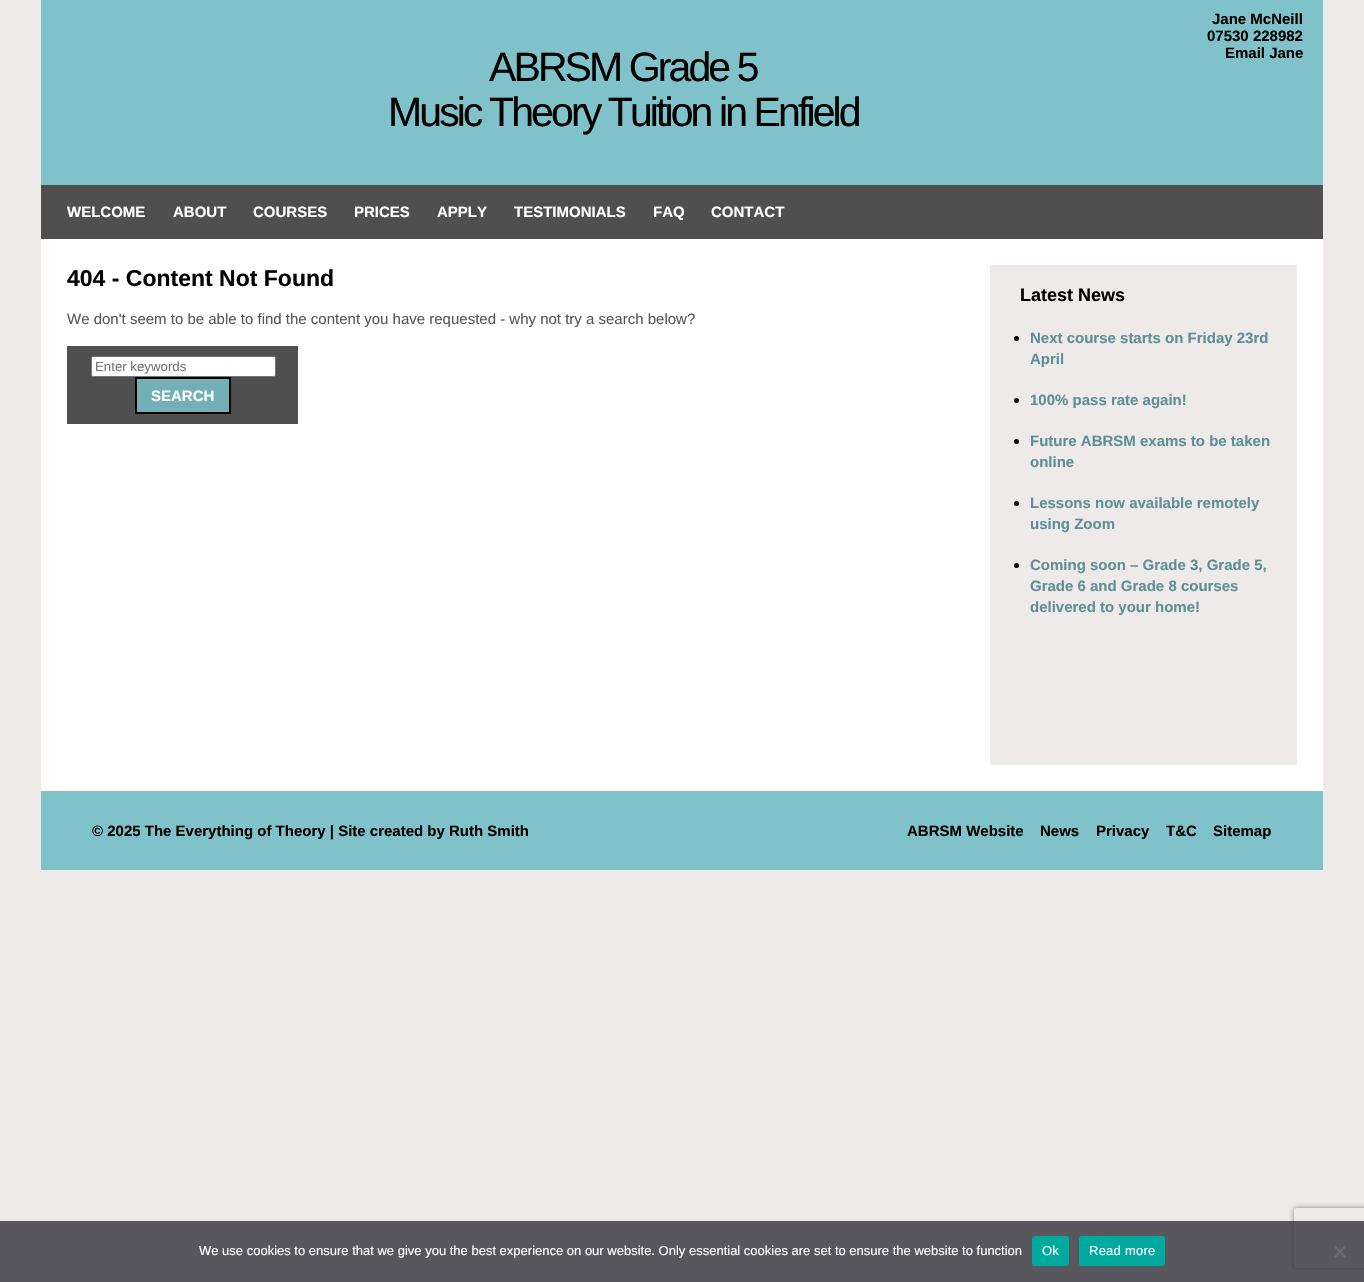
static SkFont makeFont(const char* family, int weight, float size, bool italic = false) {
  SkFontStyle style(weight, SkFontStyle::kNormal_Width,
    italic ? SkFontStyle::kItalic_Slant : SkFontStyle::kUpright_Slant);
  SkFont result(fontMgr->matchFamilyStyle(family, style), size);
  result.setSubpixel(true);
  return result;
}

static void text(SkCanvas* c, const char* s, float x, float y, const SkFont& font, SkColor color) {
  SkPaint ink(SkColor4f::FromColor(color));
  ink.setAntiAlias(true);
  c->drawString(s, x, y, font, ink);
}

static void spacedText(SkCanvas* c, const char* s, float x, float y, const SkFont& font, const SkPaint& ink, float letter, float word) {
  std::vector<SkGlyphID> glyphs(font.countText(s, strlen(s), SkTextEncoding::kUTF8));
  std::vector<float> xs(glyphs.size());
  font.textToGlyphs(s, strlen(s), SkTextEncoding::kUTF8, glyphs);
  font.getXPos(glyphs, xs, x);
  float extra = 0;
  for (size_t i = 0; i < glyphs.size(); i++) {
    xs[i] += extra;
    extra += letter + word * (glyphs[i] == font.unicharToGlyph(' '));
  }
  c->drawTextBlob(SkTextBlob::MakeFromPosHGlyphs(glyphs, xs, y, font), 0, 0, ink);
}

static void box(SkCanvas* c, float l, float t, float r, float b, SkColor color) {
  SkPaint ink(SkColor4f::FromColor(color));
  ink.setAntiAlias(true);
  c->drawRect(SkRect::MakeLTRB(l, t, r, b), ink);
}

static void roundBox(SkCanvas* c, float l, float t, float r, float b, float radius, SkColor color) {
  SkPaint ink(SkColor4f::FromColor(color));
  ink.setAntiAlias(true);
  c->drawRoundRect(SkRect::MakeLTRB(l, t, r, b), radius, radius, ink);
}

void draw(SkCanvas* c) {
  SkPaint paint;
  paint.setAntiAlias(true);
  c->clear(0xffeeeaea);
  box(c, 41, 0, 1323, 185, 0xff7fc2ca);
  SkFont face1 = makeFont("Liberation Sans", 700, 15);
  text(c, "Jane McNeill", 1212, 24, face1, 0xff000000);
  text(c, "07530 228982", 1207, 41, face1, 0xff000000);
  text(c, "Email Jane", 1225, 58, face1, 0xff000000);
  SkFont face2 = makeFont("Liberation Sans", 400, 41);
  paint.setColor(0xff000000);
  spacedText(c, "ABRSM Grade 5", 489, 81, face2, paint, -2.9f, 0);
  spacedText(c, "Music Theory Tuition in Enfield", 388, 126, face2, paint, -2.9f, 0);
  box(c, 41, 239, 1323, 791, 0xffffffff);
  box(c, 41, 185, 1323, 239, 0xff4f4f4f);
  text(c, "WELCOME", 67, 217, face1, 0xffffffff);
  text(c, "ABOUT", 173, 217, face1, 0xffffffff);
  text(c, "COURSES", 253, 217, face1, 0xffffffff);
  text(c, "PRICES", 354, 217, face1, 0xffffffff);
  text(c, "APPLY", 437, 217, face1, 0xffffffff);
  text(c, "TESTIMONIALS", 514, 217, face1, 0xffffffff);
  text(c, "FAQ", 653, 217, face1, 0xffffffff);
  text(c, "CONTACT", 711, 217, face1, 0xffffffff);
  SkFont face3 = makeFont("Liberation Sans", 700, 23);
  text(c, "404 - Content Not Found", 67, 286, face3, 0xff000000);
  SkFont face4 = makeFont("Liberation Sans", 400, 15);
  text(c, "We don't seem to be able to find the content you have requested - why not try a search below?", 67, 324, face4, 0xff575856);
  box(c, 67, 346, 298, 424, 0xff4f4f4f);
  paint.setColor(0xffffffff);
  c->drawRoundRect(SkRect::MakeLTRB(91.5f, 356.5f, 275.5f, 376.5f), 1.5f, 1.5f, paint);
  paint.setStyle(SkPaint::kStroke_Style);
  paint.setStrokeWidth(1);
  paint.setColor(0xff767676);
  c->drawRoundRect(SkRect::MakeLTRB(91.5f, 356.5f, 275.5f, 376.5f), 1.5f, 1.5f, paint);
  SkFont face5 = makeFont("Liberation Sans", 400, 13.25f);
  text(c, "Enter keywords", 95, 371, face5, 0xff757575);
  paint.setStyle(SkPaint::kFill_Style);
  paint.setColor(0xff73afb6);
  c->drawRect(SkRect::MakeLTRB(136, 378, 230, 413), paint);
  paint.setStyle(SkPaint::kStroke_Style);
  paint.setStrokeWidth(2);
  paint.setColor(0xff000000);
  c->drawRect(SkRect::MakeLTRB(136, 378, 230, 413), paint);
  text(c, "SEARCH", 151, 401, face1, 0xffffffff);
  box(c, 990, 265, 1297, 765, 0xffeeeaea);
  SkFont face6 = makeFont("Liberation Sans", 700, 18);
  text(c, "Latest News", 1020, 301, face6, 0xff000000);
  paint.setStyle(SkPaint::kFill_Style);
  c->drawCircle(1016.5f, 338.5f, 2.5f, paint);
  text(c, "Next course starts on Friday 23rd", 1030, 343, face1, 0xff5f8f95);
  text(c, "April", 1030, 364, face1, 0xff5f8f95);
  c->drawCircle(1016.5f, 400.5f, 2.5f, paint);
  text(c, "100% pass rate again!", 1030, 405, face1, 0xff5f8f95);
  c->drawCircle(1016.5f, 441.5f, 2.5f, paint);
  text(c, "Future ABRSM exams to be taken", 1030, 446, face1, 0xff5f8f95);
  text(c, "online", 1030, 467, face1, 0xff5f8f95);
  c->drawCircle(1016.5f, 503.5f, 2.5f, paint);
  text(c, "Lessons now available remotely", 1030, 508, face1, 0xff5f8f95);
  text(c, "using Zoom", 1030, 529, face1, 0xff5f8f95);
  c->drawCircle(1016.5f, 565.5f, 2.5f, paint);
  text(c, "Coming soon – Grade 3, Grade 5,", 1030, 570, face1, 0xff5f8f95);
  text(c, "Grade 6 and Grade 8 courses", 1030, 591, face1, 0xff5f8f95);
  text(c, "delivered to your home!", 1030, 612, face1, 0xff5f8f95);
  box(c, 41, 791, 1323, 870, 0xff7fc2ca);
  text(c, "© 2025 The Everything of Theory | Site created by Ruth Smith", 92, 836, face1, 0xff000000);
  text(c, "ABRSM Website", 907, 836, face1, 0xff000000);
  text(c, "News", 1040, 836, face1, 0xff000000);
  text(c, "Privacy", 1096, 836, face1, 0xff000000);
  text(c, "T&C", 1166, 836, face1, 0xff000000);
  text(c, "Sitemap", 1213, 836, face1, 0xff000000);
  c->save();
  c->clipPath(SkPathBuilder(SkPathFillType::kEvenOdd).moveTo(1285, 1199).lineTo(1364, 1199).lineTo(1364, 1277).lineTo(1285, 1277).close().moveTo(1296, 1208).lineTo(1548, 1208).cubicTo(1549, 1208, 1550, 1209, 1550, 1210).lineTo(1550, 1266).cubicTo(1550, 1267, 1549, 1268, 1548, 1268).lineTo(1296, 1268).cubicTo(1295, 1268, 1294, 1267, 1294, 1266).lineTo(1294, 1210).cubicTo(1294, 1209, 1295, 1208, 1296, 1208).close().detach(), true);
  paint.setColor(0xff808080);
  paint.setMaskFilter(SkMaskFilter::MakeBlur(kNormal_SkBlurStyle, 2.5f));
  c->drawRoundRect(SkRect::MakeLTRB(1294, 1208, 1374, 1268), 2, 2, paint);
  paint.setMaskFilter(nullptr);
  c->restore();
  box(c, 0, 1221, 1364, 1282, 0xcc32323a);
  SkFont face7 = makeFont("Liberation Sans", 400, 13);
  text(c, "We use cookies to ensure that we give you the best experience on our website. Only essential cookies are set to ensure the website to function", 199, 1255, face7, 0xffffffff);
  roundBox(c, 1032, 1236, 1069, 1266, 3, 0xff00a99d);
  paint.setColor(0xffffffff);
  spacedText(c, "Ok", 1042, 1255, face7, paint, 0.25f, 0);
  roundBox(c, 1079, 1236, 1165, 1266, 3, 0xff00a99d);
  spacedText(c, "Read more", 1089, 1255, face7, paint, 0.25f, 0);
  paint.setColor(0xff6c6b6f);
  c->drawPath(SkPathBuilder().moveTo(1344.5f, 1245.5f).lineTo(1346, 1247).lineTo(1335.5f, 1258).lineTo(1334, 1256.5f).close().detach(), paint);
  c->drawPath(SkPathBuilder().moveTo(1334, 1247).lineTo(1335.5f, 1245.5f).lineTo(1346, 1256.5f).lineTo(1344.5f, 1258).close().detach(), paint);
}
